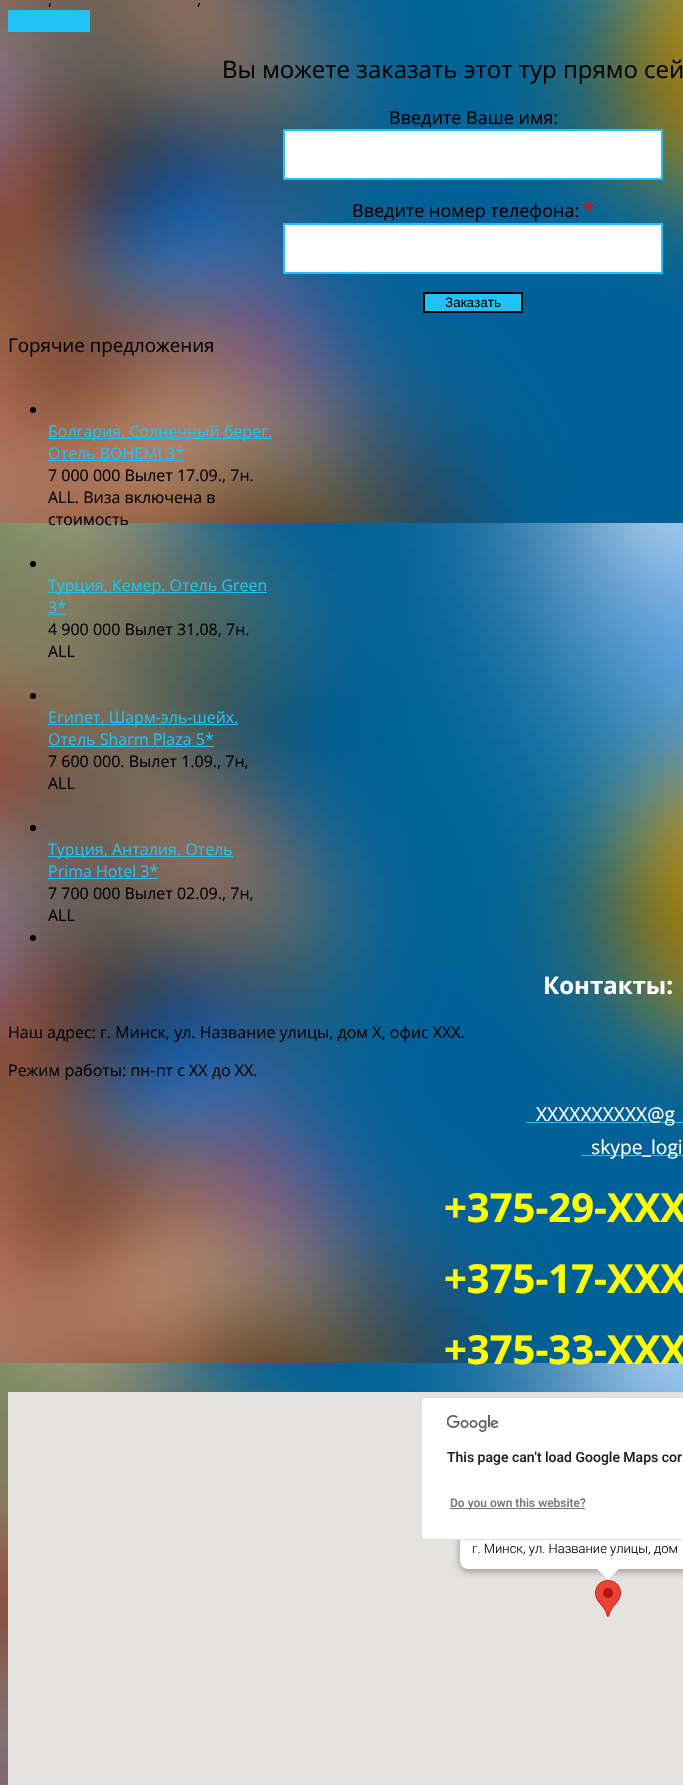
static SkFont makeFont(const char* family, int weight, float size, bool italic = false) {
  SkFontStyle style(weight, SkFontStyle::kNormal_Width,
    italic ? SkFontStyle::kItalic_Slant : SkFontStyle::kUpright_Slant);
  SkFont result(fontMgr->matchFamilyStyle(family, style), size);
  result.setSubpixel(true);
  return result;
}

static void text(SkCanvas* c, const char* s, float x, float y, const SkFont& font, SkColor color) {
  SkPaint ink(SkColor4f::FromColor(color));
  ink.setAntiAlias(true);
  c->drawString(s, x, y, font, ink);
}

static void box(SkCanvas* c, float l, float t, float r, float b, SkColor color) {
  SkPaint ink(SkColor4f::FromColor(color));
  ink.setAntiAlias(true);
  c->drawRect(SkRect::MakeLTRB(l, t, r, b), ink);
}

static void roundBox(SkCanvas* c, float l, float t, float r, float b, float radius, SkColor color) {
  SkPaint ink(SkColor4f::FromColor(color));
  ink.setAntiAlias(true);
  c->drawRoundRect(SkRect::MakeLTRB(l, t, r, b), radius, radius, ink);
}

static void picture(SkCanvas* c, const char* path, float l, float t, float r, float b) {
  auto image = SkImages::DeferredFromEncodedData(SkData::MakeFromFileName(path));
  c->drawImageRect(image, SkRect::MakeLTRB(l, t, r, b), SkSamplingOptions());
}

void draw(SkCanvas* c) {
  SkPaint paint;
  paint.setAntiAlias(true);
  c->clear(0xffffffff);
  picture(c, "img_01.png", 0, 0, 683, 1785);
  SkFont face1 = makeFont("Open Sans", 400, 16);
  text(c, ",", 48, 5, face1, 0xff000000);
  text(c, ",", 197, 5, face1, 0xff000000);
  box(c, 8, 10, 90, 32, 0xff21c2f8);
  SkFont face2 = makeFont("Open Sans", 400, 24);
  text(c, "Вы можете заказать этот тур прямо сей", 222, 78, face2, 0xff000000);
  SkFont face3 = makeFont("Open Sans", 400, 18);
  text(c, "Введите Ваше имя:", 389, 124, face3, 0xff000000);
  paint.setColor(0xffffffff);
  c->drawRect(SkRect::MakeLTRB(284, 130, 662, 179), paint);
  paint.setStyle(SkPaint::kStroke_Style);
  paint.setStrokeWidth(2);
  paint.setColor(0xff21c2f8);
  c->drawRect(SkRect::MakeLTRB(284, 130, 662, 179), paint);
  text(c, "Введите номер телефона:", 352, 217, face3, 0xff000000);
  SkFont face4 = makeFont("Open Sans", 400, 20);
  text(c, "*", 583, 217, face4, 0xffff0000);
  paint.setStyle(SkPaint::kFill_Style);
  paint.setColor(0xffffffff);
  c->drawRect(SkRect::MakeLTRB(284, 224, 662, 273), paint);
  paint.setStyle(SkPaint::kStroke_Style);
  paint.setColor(0xff21c2f8);
  c->drawRect(SkRect::MakeLTRB(284, 224, 662, 273), paint);
  paint.setStyle(SkPaint::kFill_Style);
  c->drawRect(SkRect::MakeLTRB(424, 293, 522, 312), paint);
  paint.setStyle(SkPaint::kStroke_Style);
  paint.setColor(0xff000000);
  c->drawRect(SkRect::MakeLTRB(424, 293, 522, 312), paint);
  SkFont face5 = makeFont("Liberation Sans", 400, 13.5f);
  text(c, "Заказать", 445, 307, face5, 0xff000000);
  SkFont face6 = makeFont("Open Sans", 400, 18.75f);
  text(c, "Горячие предложения", 8, 352, face6, 0xff000000);
  paint.setStyle(SkPaint::kFill_Style);
  c->drawCircle(33, 410, 3, paint);
  box(c, 48, 438, 272, 439, 0xff21c2f8);
  text(c, "Болгария, Солнечный берег.", 48, 437, face1, 0xff21c2f8);
  text(c, "Отель BOHEMI 3*", 48, 459, face1, 0xff21c2f8);
  box(c, 48, 460, 184, 461, 0xff21c2f8);
  text(c, "7 000 000 Вылет 17.09., 7н.", 48, 481, face1, 0xff000000);
  text(c, "ALL. Виза включена в", 48, 503, face1, 0xff000000);
  text(c, "стоимость", 48, 525, face1, 0xff000000);
  c->drawCircle(33, 564, 3, paint);
  box(c, 48, 592, 267, 593, 0xff21c2f8);
  text(c, "Турция, Кемер. Отель Green", 48, 591, face1, 0xff21c2f8);
  text(c, "3*", 48, 613, face1, 0xff21c2f8);
  box(c, 48, 614, 66, 615, 0xff21c2f8);
  text(c, "4 900 000 Вылет 31.08, 7н.", 48, 635, face1, 0xff000000);
  text(c, "ALL", 48, 657, face1, 0xff000000);
  c->drawCircle(33, 696, 3, paint);
  box(c, 48, 724, 238, 725, 0xff21c2f8);
  text(c, "Египет, Шарм-эль-шейх.", 48, 723, face1, 0xff21c2f8);
  text(c, "Отель Sharm Plaza 5*", 48, 745, face1, 0xff21c2f8);
  box(c, 48, 746, 214, 747, 0xff21c2f8);
  text(c, "7 600 000. Вылет 1.09., 7н,", 48, 767, face1, 0xff000000);
  text(c, "ALL", 48, 789, face1, 0xff000000);
  c->drawCircle(33, 828, 3, paint);
  box(c, 48, 856, 233, 857, 0xff21c2f8);
  text(c, "Турция, Анталия. Отель", 48, 855, face1, 0xff21c2f8);
  text(c, "Prima Hotel 3*", 48, 877, face1, 0xff21c2f8);
  box(c, 48, 878, 158, 879, 0xff21c2f8);
  text(c, "7 700 000 Вылет 02.09., 7н,", 48, 899, face1, 0xff000000);
  text(c, "ALL", 48, 921, face1, 0xff000000);
  c->drawCircle(33, 938, 3, paint);
  SkFont face7 = makeFont("Open Sans", 700, 24);
  text(c, "Контакты:", 543, 994, face7, 0xffffffff);
  text(c, "Наш адрес: г. Минск, ул. Название улицы, дом X, офис XXX.", 8, 1038, face1, 0xff000000);
  text(c, "Режим работы: пн-пт с XX до XX.", 8, 1076, face1, 0xff000000);
  box(c, 526, 1122, 683, 1123, 0xff21c2f8);
  SkFont face8 = makeFont("Open Sans", 400, 19.25f);
  text(c, "XXXXXXXXXX@g", 536, 1121, face8, 0xffffffff);
  box(c, 581, 1155, 683, 1156, 0xff21c2f8);
  text(c, "skype_logi", 591, 1154, face8, 0xffffffff);
  SkFont face9 = makeFont("Open Sans", 700, 40);
  text(c, "+375-29-XXX", 444, 1222, face9, 0xffffff00);
  text(c, "+375-17-XXX", 444, 1293, face9, 0xffffff00);
  text(c, "+375-33-XXX", 444, 1364, face9, 0xffffff00);
  box(c, 8, 1392, 683, 1785, 0xffe5e3df);
  picture(c, "img_03.png", 595, 1580, 621, 1617);
  paint.setColor(0x4d000000);
  paint.setMaskFilter(SkMaskFilter::MakeBlur(kNormal_SkBlurStyle, 3.5f));
  c->drawRoundRect(SkRect::MakeLTRB(459, 1466, 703, 1572), 9, 9, paint);
  paint.setMaskFilter(nullptr);
  roundBox(c, 460, 1465, 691, 1569, 8, 0xffffffff);
  roundBox(c, 421, 1397, 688, 1540, 5, 0xffffffff);
  paint.setStyle(SkPaint::kStroke_Style);
  paint.setStrokeWidth(1);
  paint.setColor(0x1f000000);
  c->drawRoundRect(SkRect::MakeLTRB(421.5f, 1397.5f, 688.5f, 1539.5f), 4.5f, 4.5f, paint);
  picture(c, "img_02.png", 447, 1415, 499, 1432);
  SkFont face10 = makeFont("Roboto", 500, 14);
  text(c, "This page can't load Google Maps cor", 447, 1462, face10, 0xff212121);
  box(c, 450, 1508, 585, 1509, 0xff757575);
  SkFont face11 = makeFont("Roboto", 500, 12);
  text(c, "Do you own this website?", 450, 1507, face11, 0xff757575);
  SkFont face12 = makeFont("Roboto", 300, 13);
  text(c, "г. Минск, ул. Название улицы, дом", 472, 1553, face12, 0xff000000);
  paint.setStyle(SkPaint::kFill_Style);
  paint.setColor(0xffffffff);
  c->drawPath(SkPathBuilder().moveTo(620, 1568).lineTo(596, 1568).lineTo(608, 1579.5f).close().detach(), paint);
}
